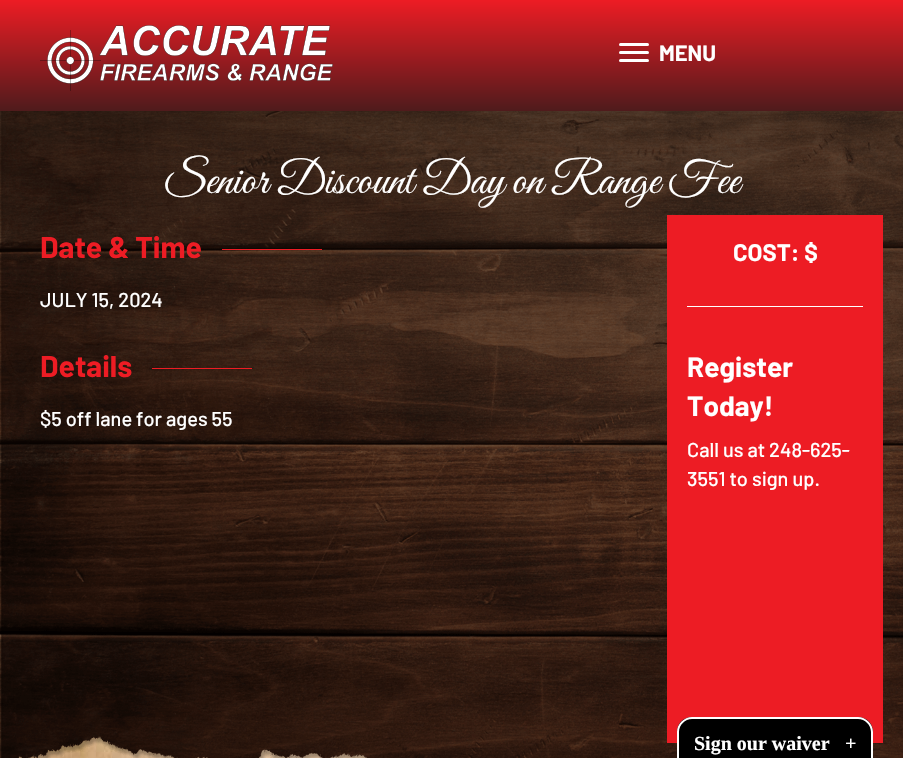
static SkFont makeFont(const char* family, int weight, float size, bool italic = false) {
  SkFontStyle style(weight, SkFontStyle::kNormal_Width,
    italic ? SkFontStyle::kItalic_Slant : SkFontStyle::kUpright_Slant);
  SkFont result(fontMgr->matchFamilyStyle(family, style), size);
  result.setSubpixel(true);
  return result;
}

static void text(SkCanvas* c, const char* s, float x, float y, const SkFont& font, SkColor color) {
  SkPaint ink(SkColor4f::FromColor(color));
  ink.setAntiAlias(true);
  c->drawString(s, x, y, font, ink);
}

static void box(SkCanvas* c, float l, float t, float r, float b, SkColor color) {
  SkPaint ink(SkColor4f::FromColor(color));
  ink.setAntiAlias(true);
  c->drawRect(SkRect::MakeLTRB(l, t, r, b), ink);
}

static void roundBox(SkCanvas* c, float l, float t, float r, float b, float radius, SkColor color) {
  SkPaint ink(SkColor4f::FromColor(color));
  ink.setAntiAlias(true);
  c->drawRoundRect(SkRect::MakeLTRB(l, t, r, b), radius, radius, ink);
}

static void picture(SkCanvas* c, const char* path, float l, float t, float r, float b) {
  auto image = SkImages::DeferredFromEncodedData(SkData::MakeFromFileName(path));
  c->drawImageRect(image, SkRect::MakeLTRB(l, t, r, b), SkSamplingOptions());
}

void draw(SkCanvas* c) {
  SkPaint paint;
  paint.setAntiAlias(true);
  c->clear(0xffffffff);
  picture(c, "img_01.png", 18, 736, 367, 758);
  {
    const SkColor colors[] = {0xffed1c24, 0xff4f1b1c};
    const float stops[] = {0, 1};
    const SkPoint ends[] = {{452, 0}, {452, 111}};
    paint.setShader(SkGradientShader::MakeLinear(ends, colors, stops, 2, SkTileMode::kClamp));
    paint.setAlpha(255);
  }
  c->drawRect(SkRect::MakeLTRB(0, 0, 903, 111), paint);
  picture(c, "img_02.png", 40, 25, 333, 91);
  roundBox(c, 619, 51, 649, 54, 1.5f, 0xffffffff);
  roundBox(c, 619, 43, 649, 46, 1.5f, 0xffffffff);
  roundBox(c, 619, 59, 649, 62, 1.5f, 0xffffffff);
  SkFont face1 = makeFont("Barlow", 700, 22);
  text(c, "MENU", 659, 61, face1, 0xffffffff);
  picture(c, "img_03.png", 0, 111, 903, 758);
  SkFont face2 = makeFont("Great Vibes", 400, 46);
  text(c, "Senior Discount Day on Range Fee", 163, 193, face2, 0xffffffff);
  SkFont face3 = makeFont("Barlow", 700, 30);
  text(c, "Date & Time", 40, 258, face3, 0xffed1c24);
  box(c, 222, 249, 322, 250, 0xffed1c24);
  SkFont face4 = makeFont("Barlow", 500, 20);
  text(c, "JULY 15, 2024", 40, 307, face4, 0xffffffff);
  text(c, "Details", 40, 377, face3, 0xffed1c24);
  box(c, 152, 368, 252, 369, 0xffed1c24);
  text(c, "$5 off lane for ages 55", 40, 426, face4, 0xffffffff);
  box(c, 667, 215, 883, 743, 0xffed1c24);
  SkFont face5 = makeFont("Barlow", 700, 24);
  text(c, "COST: $", 733, 261, face5, 0xffffffff);
  box(c, 687, 306, 863, 307, 0xffffffff);
  SkFont face6 = makeFont("Barlow", 700, 28);
  text(c, "Register", 687, 377, face6, 0xffffffff);
  text(c, "Today!", 687, 416, face6, 0xffffffff);
  text(c, "Call us at 248-625-", 687, 457, face4, 0xffffffff);
  text(c, "3551 to sign up.", 687, 486, face4, 0xffffffff);
  paint.setShader(nullptr);
  paint.setColor(0xff000000);
  c->drawPath(SkPathBuilder().moveTo(692, 717).lineTo(858, 717).cubicTo(866.5f, 717, 873, 723.5f, 873, 732).lineTo(873, 758).lineTo(677, 758).lineTo(677, 732).cubicTo(677, 723.5f, 683.5f, 717, 692, 717).close().detach(), paint);
  paint.setColor(0xffffffff);
  c->drawPath(SkPathBuilder(SkPathFillType::kEvenOdd).moveTo(692, 717).lineTo(858, 717).cubicTo(866, 717, 873, 724, 873, 732).lineTo(873, 758).lineTo(677, 758).lineTo(677, 732).cubicTo(677, 724, 684, 717, 692, 717).close().moveTo(692, 719).lineTo(858, 719).cubicTo(865, 719, 871, 725, 871, 732).lineTo(871, 758).lineTo(679, 758).lineTo(679, 732).cubicTo(679, 725, 685, 719, 692, 719).close().detach(), paint);
  SkFont face7 = makeFont("Liberation Serif", 700, 20);
  text(c, "Sign our waiver", 694, 750, face7, 0xffffffff);
  text(c, "+", 845, 750, face7, 0xffffffff);
}
